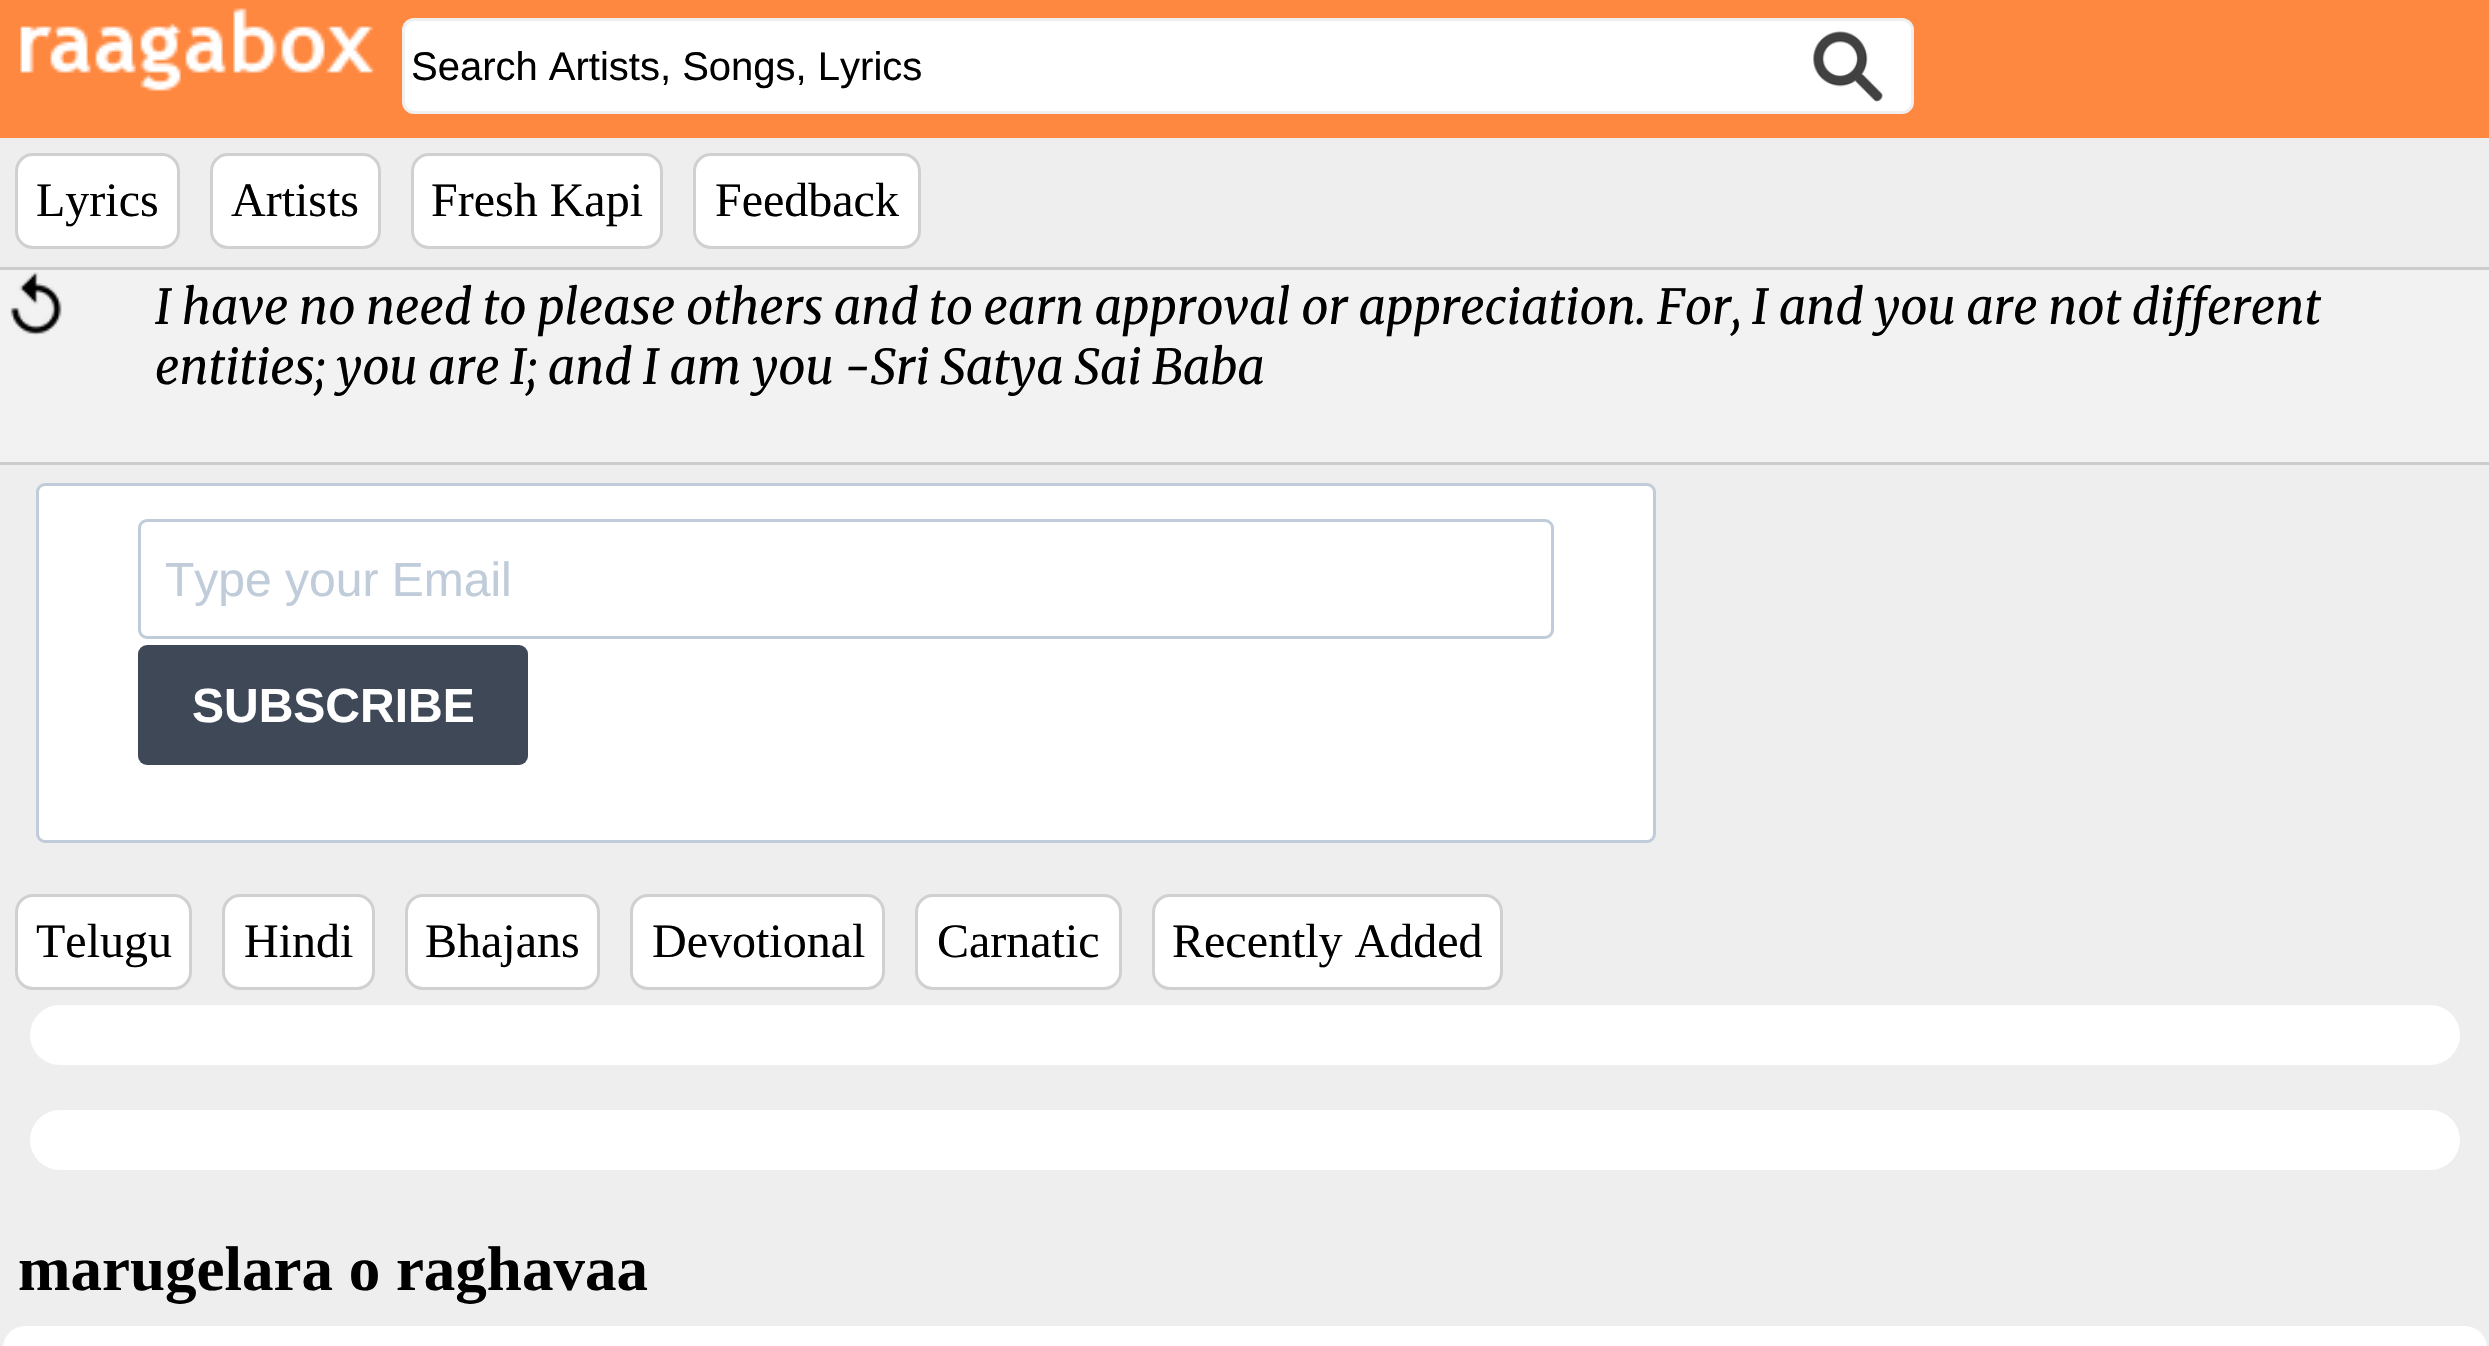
static SkFont makeFont(const char* family, int weight, float size, bool italic = false) {
  SkFontStyle style(weight, SkFontStyle::kNormal_Width,
    italic ? SkFontStyle::kItalic_Slant : SkFontStyle::kUpright_Slant);
  SkFont result(fontMgr->matchFamilyStyle(family, style), size);
  result.setSubpixel(true);
  return result;
}

static void text(SkCanvas* c, const char* s, float x, float y, const SkFont& font, SkColor color) {
  SkPaint ink(SkColor4f::FromColor(color));
  ink.setAntiAlias(true);
  c->drawString(s, x, y, font, ink);
}

static void box(SkCanvas* c, float l, float t, float r, float b, SkColor color) {
  SkPaint ink(SkColor4f::FromColor(color));
  ink.setAntiAlias(true);
  c->drawRect(SkRect::MakeLTRB(l, t, r, b), ink);
}

static void roundBox(SkCanvas* c, float l, float t, float r, float b, float radius, SkColor color) {
  SkPaint ink(SkColor4f::FromColor(color));
  ink.setAntiAlias(true);
  c->drawRoundRect(SkRect::MakeLTRB(l, t, r, b), radius, radius, ink);
}

static void picture(SkCanvas* c, const char* path, float l, float t, float r, float b) {
  auto image = SkImages::DeferredFromEncodedData(SkData::MakeFromFileName(path));
  c->drawImageRect(image, SkRect::MakeLTRB(l, t, r, b), SkSamplingOptions());
}

void draw(SkCanvas* c) {
  SkPaint paint;
  paint.setAntiAlias(true);
  c->clear(0xffeeeeee);
  box(c, 0, 0, 2489, 138, 0xffff8840);
  picture(c, "img_01.png", 20, 8, 376, 91);
  paint.setColor(0xffffffff);
  c->drawRoundRect(SkRect::MakeLTRB(403.5f, 19.5f, 1912.5f, 112.5f), 10.5f, 10.5f, paint);
  paint.setStyle(SkPaint::kStroke_Style);
  paint.setStrokeWidth(3);
  paint.setColor(0xfff0f0f0);
  c->drawRoundRect(SkRect::MakeLTRB(403.5f, 19.5f, 1912.5f, 112.5f), 10.5f, 10.5f, paint);
  SkFont face1 = makeFont("Liberation Sans", 400, 40);
  text(c, "Search Artists, Songs, Lyrics", 411, 80, face1, 0xff000000);
  picture(c, "img_02.png", 1813, 31, 1883, 102);
  paint.setStyle(SkPaint::kFill_Style);
  paint.setColor(0xffffffff);
  c->drawRoundRect(SkRect::MakeLTRB(16.5f, 154.5f, 178.5f, 247.5f), 16.5f, 16.5f, paint);
  paint.setStyle(SkPaint::kStroke_Style);
  paint.setColor(0xffd0d0d0);
  c->drawRoundRect(SkRect::MakeLTRB(16.5f, 154.5f, 178.5f, 247.5f), 16.5f, 16.5f, paint);
  SkFont face2 = makeFont("Liberation Serif", 400, 48);
  text(c, "Lyrics", 36, 216, face2, 0xff000000);
  paint.setStyle(SkPaint::kFill_Style);
  paint.setColor(0xffffffff);
  c->drawRoundRect(SkRect::MakeLTRB(211.5f, 154.5f, 379.5f, 247.5f), 16.5f, 16.5f, paint);
  paint.setStyle(SkPaint::kStroke_Style);
  paint.setColor(0xffd0d0d0);
  c->drawRoundRect(SkRect::MakeLTRB(211.5f, 154.5f, 379.5f, 247.5f), 16.5f, 16.5f, paint);
  text(c, "Artists", 231, 216, face2, 0xff000000);
  paint.setStyle(SkPaint::kFill_Style);
  paint.setColor(0xffffffff);
  c->drawRoundRect(SkRect::MakeLTRB(412.5f, 154.5f, 661.5f, 247.5f), 16.5f, 16.5f, paint);
  paint.setStyle(SkPaint::kStroke_Style);
  paint.setColor(0xffd0d0d0);
  c->drawRoundRect(SkRect::MakeLTRB(412.5f, 154.5f, 661.5f, 247.5f), 16.5f, 16.5f, paint);
  text(c, "Fresh Kapi", 431, 216, face2, 0xff000000);
  paint.setStyle(SkPaint::kFill_Style);
  paint.setColor(0xffffffff);
  c->drawRoundRect(SkRect::MakeLTRB(694.5f, 154.5f, 919.5f, 247.5f), 16.5f, 16.5f, paint);
  paint.setStyle(SkPaint::kStroke_Style);
  paint.setColor(0xffd0d0d0);
  c->drawRoundRect(SkRect::MakeLTRB(694.5f, 154.5f, 919.5f, 247.5f), 16.5f, 16.5f, paint);
  text(c, "Feedback", 715, 216, face2, 0xff000000);
  box(c, 0, 270, 2489, 462, 0xfff2f2f2);
  picture(c, "img_03.png", 10, 272, 62, 336);
  paint.setColor(0xffcccccc);
  c->drawRect(SkRect::MakeLTRB(-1.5f, 268.5f, 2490.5f, 463.5f), paint);
  SkFont face3 = makeFont("Merriweather", 400, 48, true);
  text(c, "I have no need to please others and to earn approval or appreciation. For, I and you are not different", 155, 324, face3, 0xff000000);
  text(c, "entities; you are I; and I am you -Sri Satya Sai Baba", 155, 384, face3, 0xff000000);
  paint.setStyle(SkPaint::kFill_Style);
  paint.setColor(0xffffffff);
  c->drawRoundRect(SkRect::MakeLTRB(37.5f, 484.5f, 1654.5f, 841.5f), 7.5f, 7.5f, paint);
  paint.setStyle(SkPaint::kStroke_Style);
  paint.setColor(0xffc0ccd9);
  c->drawRoundRect(SkRect::MakeLTRB(37.5f, 484.5f, 1654.5f, 841.5f), 7.5f, 7.5f, paint);
  paint.setColor(0xffc0ccda);
  c->drawRoundRect(SkRect::MakeLTRB(139.5f, 520.5f, 1552.5f, 637.5f), 7.5f, 7.5f, paint);
  SkFont face4 = makeFont("Liberation Sans", 400, 48);
  text(c, "Type your Email", 165, 596, face4, 0xffc0ccda);
  roundBox(c, 138, 645, 528, 765, 9, 0xff3e4857);
  SkFont face5 = makeFont("Liberation Sans", 700, 48);
  text(c, "SUBSCRIBE", 192, 722, face5, 0xffffffff);
  paint.setStyle(SkPaint::kFill_Style);
  paint.setColor(0xffffffff);
  c->drawRoundRect(SkRect::MakeLTRB(16.5f, 895.5f, 190.5f, 988.5f), 16.5f, 16.5f, paint);
  paint.setStyle(SkPaint::kStroke_Style);
  paint.setColor(0xffd0d0d0);
  c->drawRoundRect(SkRect::MakeLTRB(16.5f, 895.5f, 190.5f, 988.5f), 16.5f, 16.5f, paint);
  text(c, "Telugu", 36, 957, face2, 0xff000000);
  paint.setStyle(SkPaint::kFill_Style);
  paint.setColor(0xffffffff);
  c->drawRoundRect(SkRect::MakeLTRB(223.5f, 895.5f, 373.5f, 988.5f), 16.5f, 16.5f, paint);
  paint.setStyle(SkPaint::kStroke_Style);
  paint.setColor(0xffd0d0d0);
  c->drawRoundRect(SkRect::MakeLTRB(223.5f, 895.5f, 373.5f, 988.5f), 16.5f, 16.5f, paint);
  text(c, "Hindi", 244, 957, face2, 0xff000000);
  paint.setStyle(SkPaint::kFill_Style);
  paint.setColor(0xffffffff);
  c->drawRoundRect(SkRect::MakeLTRB(406.5f, 895.5f, 598.5f, 988.5f), 16.5f, 16.5f, paint);
  paint.setStyle(SkPaint::kStroke_Style);
  paint.setColor(0xffd0d0d0);
  c->drawRoundRect(SkRect::MakeLTRB(406.5f, 895.5f, 598.5f, 988.5f), 16.5f, 16.5f, paint);
  text(c, "Bhajans", 425, 957, face2, 0xff000000);
  paint.setStyle(SkPaint::kFill_Style);
  paint.setColor(0xffffffff);
  c->drawRoundRect(SkRect::MakeLTRB(631.5f, 895.5f, 883.5f, 988.5f), 16.5f, 16.5f, paint);
  paint.setStyle(SkPaint::kStroke_Style);
  paint.setColor(0xffd0d0d0);
  c->drawRoundRect(SkRect::MakeLTRB(631.5f, 895.5f, 883.5f, 988.5f), 16.5f, 16.5f, paint);
  text(c, "Devotional", 652, 957, face2, 0xff000000);
  paint.setStyle(SkPaint::kFill_Style);
  paint.setColor(0xffffffff);
  c->drawRoundRect(SkRect::MakeLTRB(916.5f, 895.5f, 1120.5f, 988.5f), 16.5f, 16.5f, paint);
  paint.setStyle(SkPaint::kStroke_Style);
  paint.setColor(0xffd0d0d0);
  c->drawRoundRect(SkRect::MakeLTRB(916.5f, 895.5f, 1120.5f, 988.5f), 16.5f, 16.5f, paint);
  text(c, "Carnatic", 937, 957, face2, 0xff000000);
  paint.setStyle(SkPaint::kFill_Style);
  paint.setColor(0xffffffff);
  c->drawRoundRect(SkRect::MakeLTRB(1153.5f, 895.5f, 1501.5f, 988.5f), 16.5f, 16.5f, paint);
  paint.setStyle(SkPaint::kStroke_Style);
  paint.setColor(0xffd0d0d0);
  c->drawRoundRect(SkRect::MakeLTRB(1153.5f, 895.5f, 1501.5f, 988.5f), 16.5f, 16.5f, paint);
  text(c, "Recently Added", 1172, 957, face2, 0xff000000);
  roundBox(c, 30, 1005, 2460, 1065, 30, 0xffffffff);
  roundBox(c, 30, 1110, 2460, 1170, 30, 0xffffffff);
  SkFont face6 = makeFont("Liberation Serif", 700, 63);
  text(c, "marugelara o raghavaa", 18, 1290, face6, 0xff000000);
  roundBox(c, 3, 1326, 2487, 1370, 24, 0xffffffff);
}
